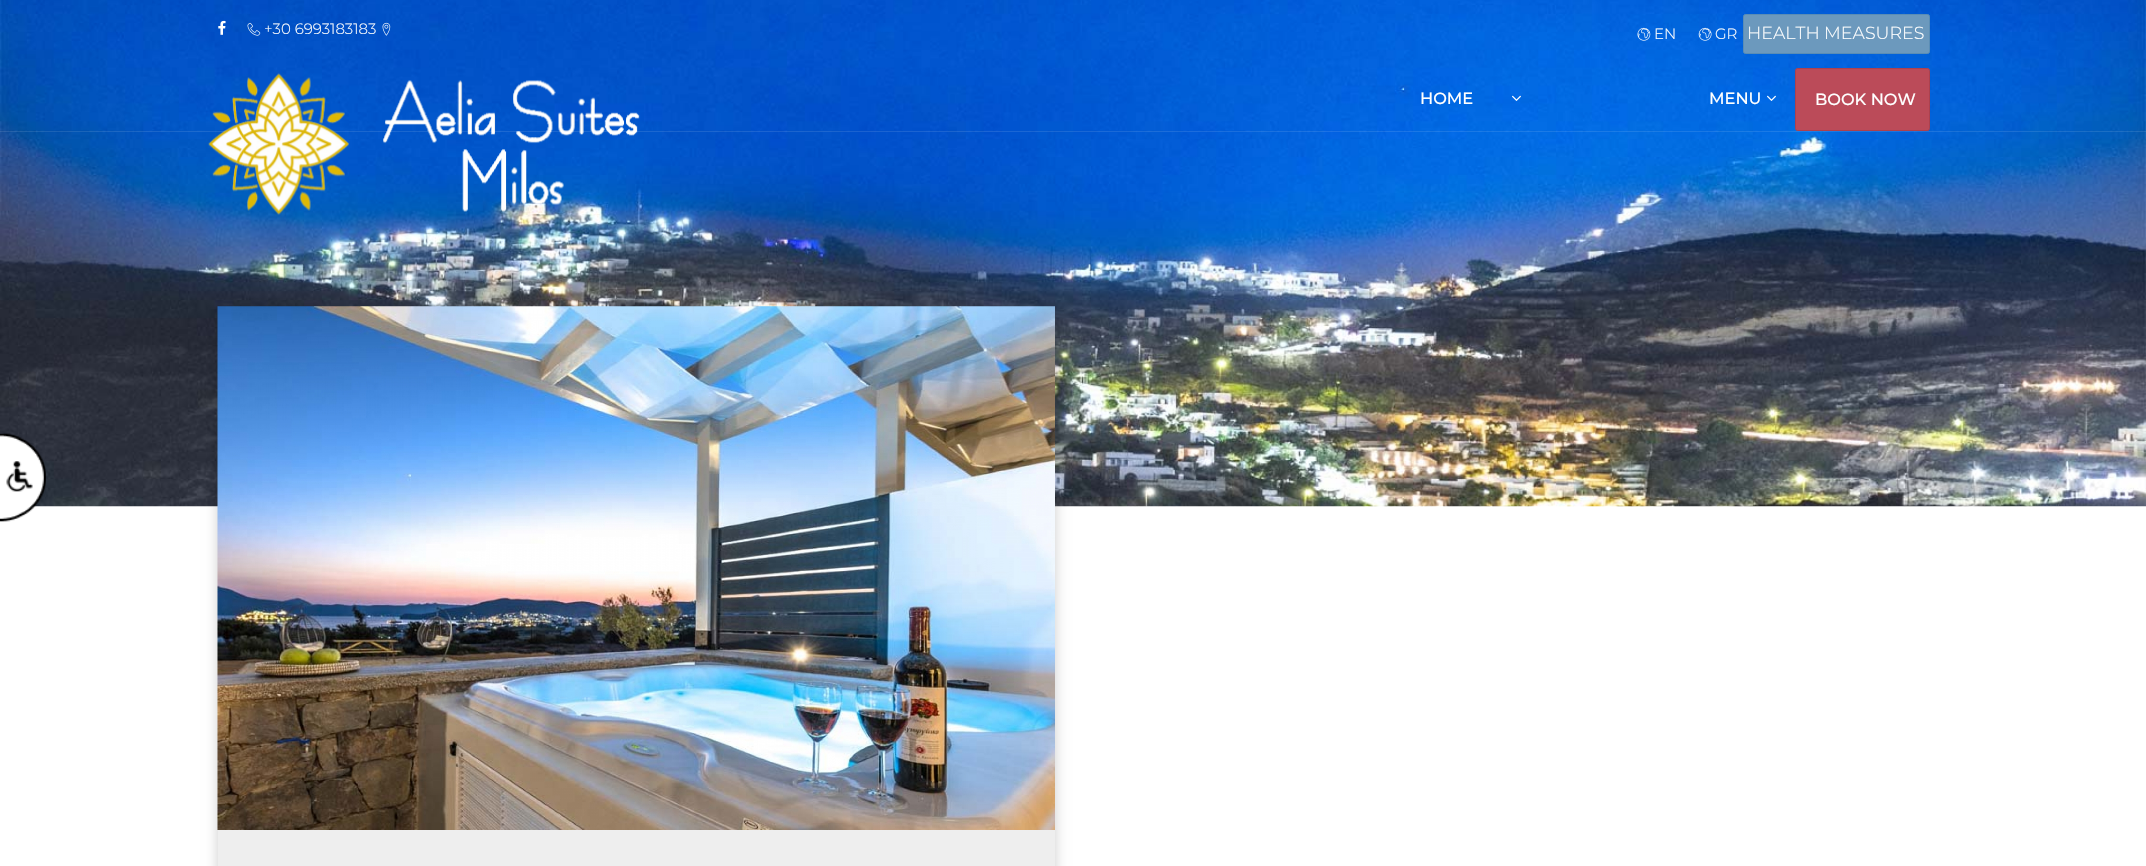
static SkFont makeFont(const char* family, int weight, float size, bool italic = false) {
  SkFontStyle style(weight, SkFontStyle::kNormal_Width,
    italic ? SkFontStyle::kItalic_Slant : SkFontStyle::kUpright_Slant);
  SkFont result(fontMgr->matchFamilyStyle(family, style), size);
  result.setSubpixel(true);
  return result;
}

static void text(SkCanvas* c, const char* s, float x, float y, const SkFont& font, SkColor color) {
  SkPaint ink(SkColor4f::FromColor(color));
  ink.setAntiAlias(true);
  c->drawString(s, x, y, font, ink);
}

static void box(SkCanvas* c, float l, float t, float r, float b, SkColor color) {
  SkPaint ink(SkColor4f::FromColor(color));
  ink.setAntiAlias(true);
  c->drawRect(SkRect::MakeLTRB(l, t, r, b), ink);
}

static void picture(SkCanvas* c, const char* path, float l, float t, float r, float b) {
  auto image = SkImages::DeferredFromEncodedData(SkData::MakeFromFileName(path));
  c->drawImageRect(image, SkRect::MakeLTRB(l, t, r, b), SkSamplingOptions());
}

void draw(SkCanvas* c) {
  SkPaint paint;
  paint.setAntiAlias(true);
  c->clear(0xffffffff);
  picture(c, "img_01.png", 0, 0, 2146, 507);
  paint.setColor(0x33000000);
  paint.setMaskFilter(SkMaskFilter::MakeBlur(kNormal_SkBlurStyle, 6));
  c->drawRect(SkRect::MakeLTRB(218, 314, 1055, 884), paint);
  paint.setMaskFilter(nullptr);
  picture(c, "img_02.png", 217, 306, 1055, 830);
  box(c, 218, 830, 1055, 866, 0xffeeeeee);
  box(c, 0, 131, 2146, 132, 0x1affffff);
  picture(c, "img_03.png", 218, 20, 226, 35);
  picture(c, "img_04.png", 247, 22, 261, 36);
  SkFont face1 = makeFont("Montserrat", 300, 15);
  text(c, "+30 6993183183", 264, 34, face1, 0xffffffff);
  picture(c, "img_05.png", 382, 22, 391, 36);
  picture(c, "img_06.png", 1637, 27, 1651, 41);
  text(c, "EN", 1654, 39, face1, 0xffffffff);
  picture(c, "img_07.png", 1698, 27, 1712, 41);
  text(c, "GR", 1715, 39, face1, 0xffffffff);
  paint.setColor(0xff6c99bd);
  c->drawRoundRect(SkRect::MakeLTRB(1743.5f, 14.5f, 1929.5f, 53.5f), 2, 2, paint);
  paint.setStyle(SkPaint::kStroke_Style);
  paint.setStrokeWidth(1);
  paint.setColor(0xff5a8db5);
  c->drawRoundRect(SkRect::MakeLTRB(1743.5f, 14.5f, 1929.5f, 53.5f), 2, 2, paint);
  SkFont face2 = makeFont("Montserrat", 300, 17.5f);
  text(c, "HEALTH MEASURES", 1747, 39, face2, 0xffffffff);
  picture(c, "img_08.png", 208, 73, 640, 215);
  SkFont face3 = makeFont("Montserrat", 500, 16.25f);
  text(c, "HOME", 1420, 104, face3, 0xffffffff);
  picture(c, "img_09.png", 1512, 95, 1521, 101);
  text(c, "MENU", 1709, 104, face3, 0xffffffff);
  picture(c, "img_10.png", 1767, 95, 1776, 101);
  paint.setStyle(SkPaint::kFill_Style);
  paint.setColor(0xffbb4b59);
  c->drawRoundRect(SkRect::MakeLTRB(1795.5f, 68.5f, 1929.5f, 130.5f), 2, 2, paint);
  paint.setStyle(SkPaint::kStroke_Style);
  paint.setColor(0xffac414e);
  c->drawRoundRect(SkRect::MakeLTRB(1795.5f, 68.5f, 1929.5f, 130.5f), 2, 2, paint);
  text(c, "BOOK NOW", 1815, 105, face3, 0xffffffff);
  picture(c, "img_11.png", 0, 433, 46, 522);
}
